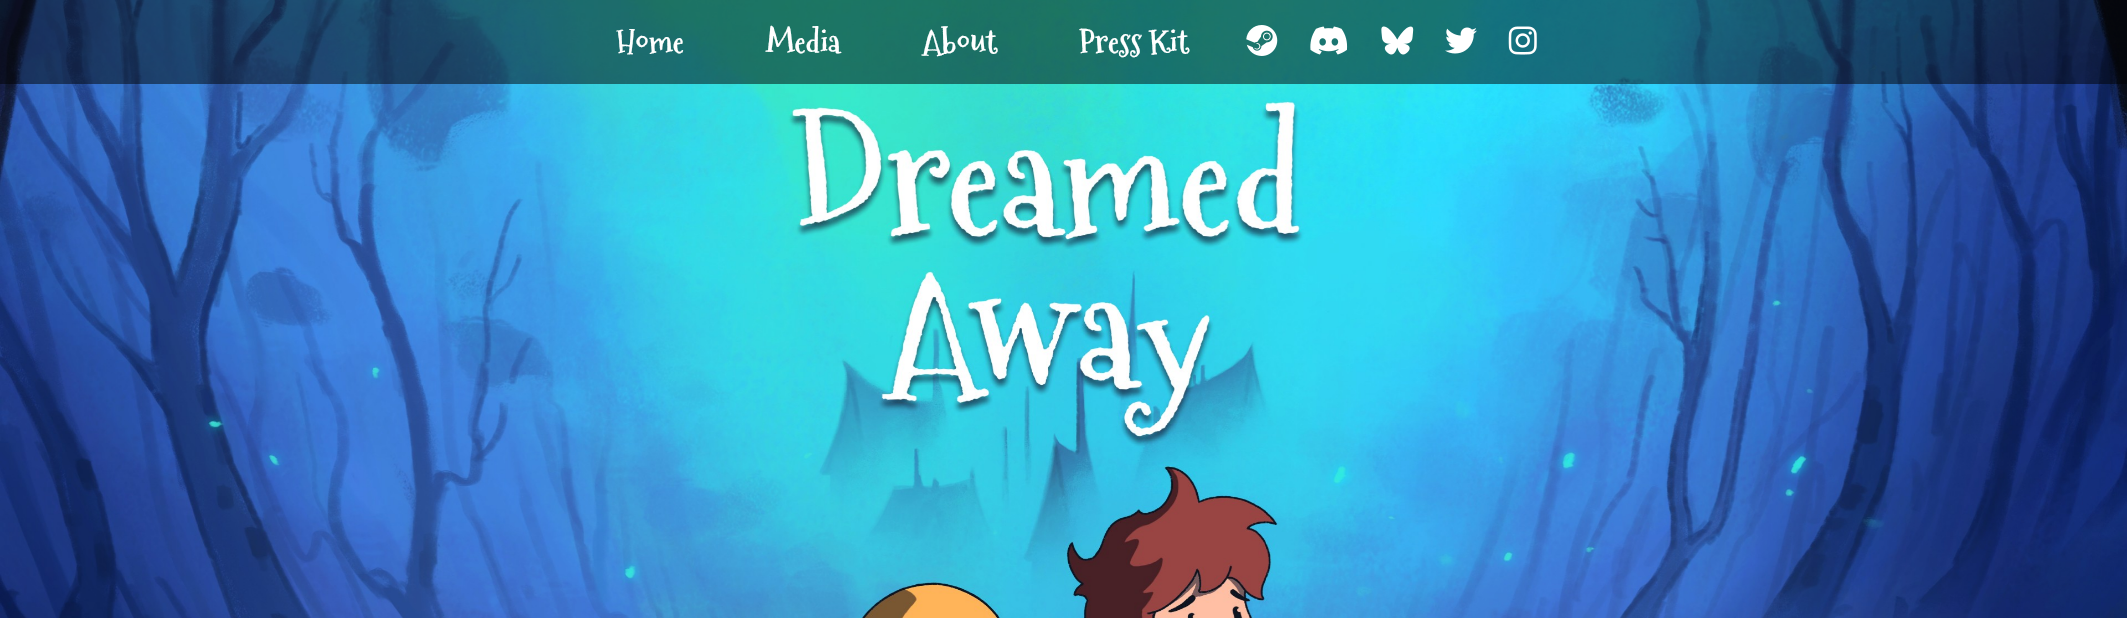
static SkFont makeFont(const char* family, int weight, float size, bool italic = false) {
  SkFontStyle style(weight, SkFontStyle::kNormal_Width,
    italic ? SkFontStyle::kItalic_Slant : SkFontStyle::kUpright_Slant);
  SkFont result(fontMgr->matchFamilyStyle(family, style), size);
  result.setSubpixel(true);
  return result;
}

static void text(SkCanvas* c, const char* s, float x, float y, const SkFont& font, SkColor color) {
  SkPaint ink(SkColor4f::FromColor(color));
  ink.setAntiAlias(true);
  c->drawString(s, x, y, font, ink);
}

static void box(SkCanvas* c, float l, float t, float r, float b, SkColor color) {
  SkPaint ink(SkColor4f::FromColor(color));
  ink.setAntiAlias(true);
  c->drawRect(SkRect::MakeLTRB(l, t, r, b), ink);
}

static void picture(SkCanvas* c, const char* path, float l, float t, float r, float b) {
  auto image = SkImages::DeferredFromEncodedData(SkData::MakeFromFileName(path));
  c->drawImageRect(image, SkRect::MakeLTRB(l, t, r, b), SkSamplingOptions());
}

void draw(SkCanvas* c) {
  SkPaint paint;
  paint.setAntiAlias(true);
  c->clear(0xffffffff);
  picture(c, "img_01.png", 0, 0, 2127, 618);
  box(c, 0, 0, 2127, 84, 0x80000000);
  SkFont face1 = makeFont("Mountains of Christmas", 700, 32);
  text(c, "Home", 616, 53, face1, 0xffffffff);
  text(c, "Media", 766, 53, face1, 0xffffffff);
  text(c, "About", 922, 53, face1, 0xffffffff);
  text(c, "Press Kit", 1079, 53, face1, 0xffffffff);
  picture(c, "img_02.png", 1246, 25, 1278, 56);
  picture(c, "img_03.png", 1310, 26, 1348, 55);
  picture(c, "img_04.png", 1381, 26, 1414, 55);
  picture(c, "img_05.png", 1445, 27, 1477, 54);
  picture(c, "img_06.png", 1508, 26, 1537, 55);
}
